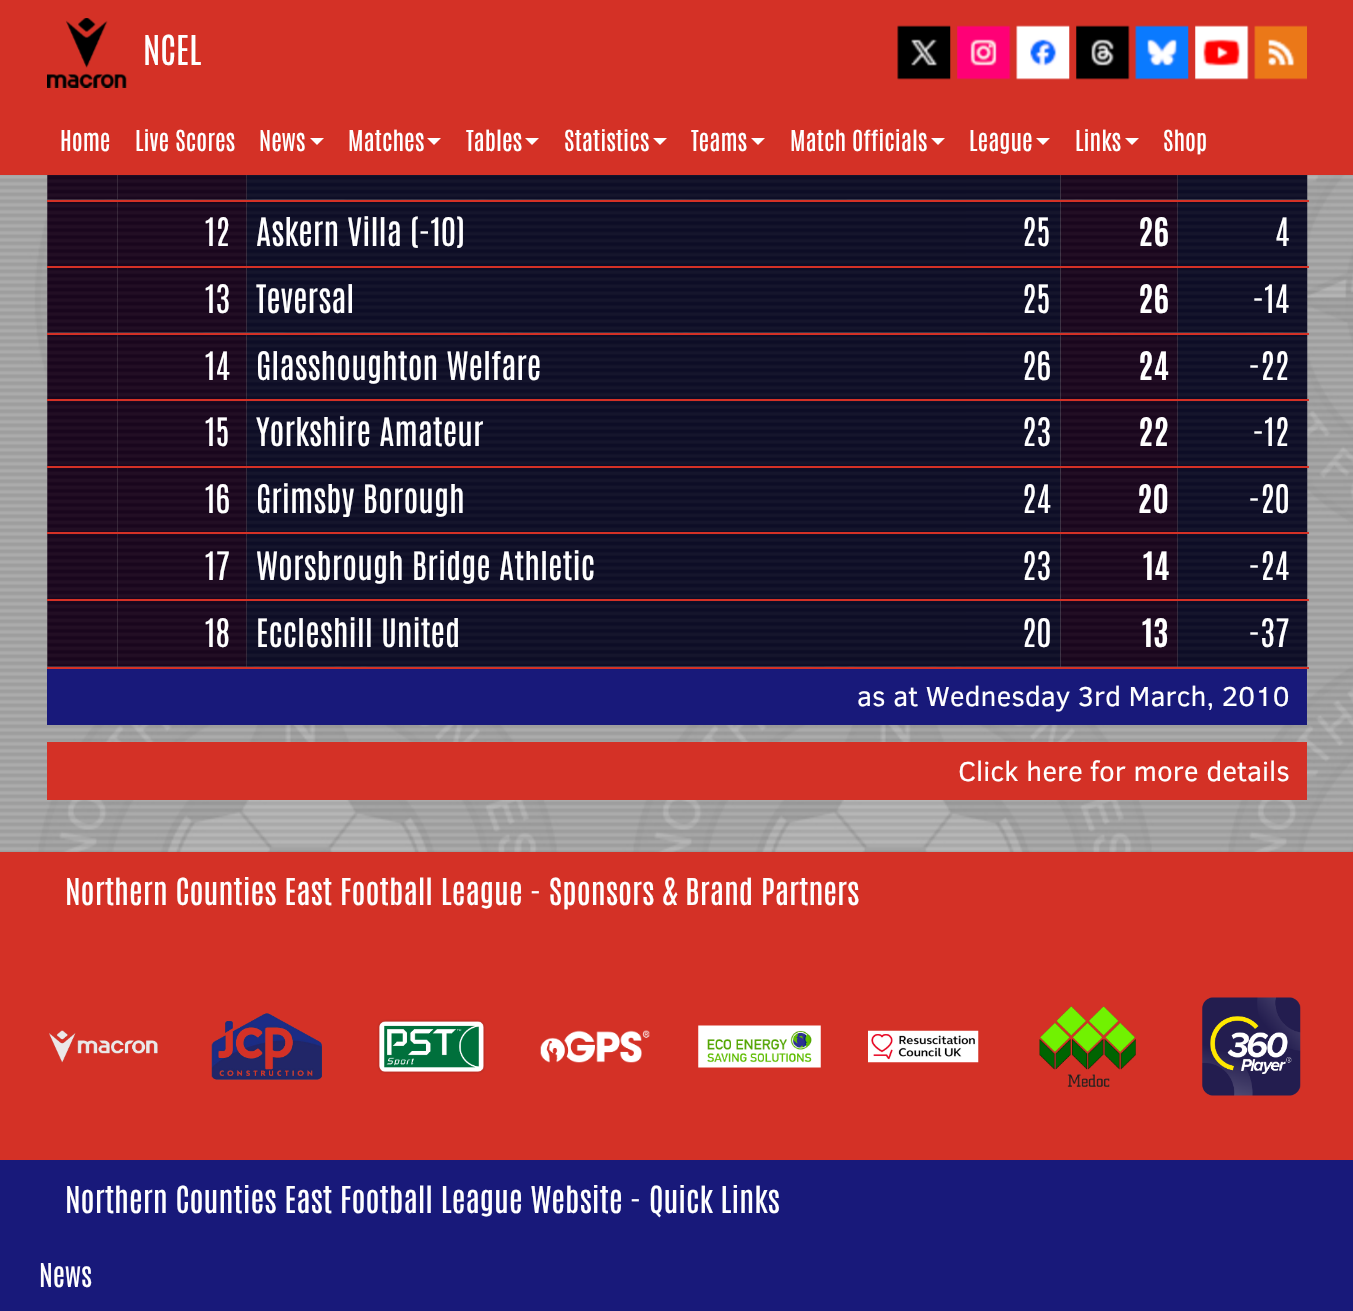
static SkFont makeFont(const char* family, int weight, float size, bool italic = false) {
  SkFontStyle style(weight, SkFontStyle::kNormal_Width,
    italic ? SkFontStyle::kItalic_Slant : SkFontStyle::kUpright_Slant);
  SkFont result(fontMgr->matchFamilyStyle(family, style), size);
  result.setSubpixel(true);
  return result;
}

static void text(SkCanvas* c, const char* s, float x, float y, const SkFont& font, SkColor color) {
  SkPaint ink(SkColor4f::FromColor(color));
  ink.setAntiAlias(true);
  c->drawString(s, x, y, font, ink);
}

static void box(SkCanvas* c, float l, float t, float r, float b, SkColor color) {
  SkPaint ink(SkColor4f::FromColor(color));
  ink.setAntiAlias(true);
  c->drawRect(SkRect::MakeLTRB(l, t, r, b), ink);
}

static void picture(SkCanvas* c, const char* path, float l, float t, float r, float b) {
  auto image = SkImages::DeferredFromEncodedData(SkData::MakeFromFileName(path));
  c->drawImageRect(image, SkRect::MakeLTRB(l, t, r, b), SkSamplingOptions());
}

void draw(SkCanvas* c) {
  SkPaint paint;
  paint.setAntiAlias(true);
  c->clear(0xffffffff);
  picture(c, "img_01.png", 0, 175, 1353, 852);
  box(c, 0, 0, 1353, 175, 0xffd43126);
  picture(c, "img_02.png", 47, 18, 127, 88);
  SkFont face1 = makeFont("Antonio", 400, 35);
  text(c, "NCEL", 143, 65, face1, 0xffffffff);
  picture(c, "img_03.png", 897, 25, 951, 80);
  picture(c, "img_04.png", 957, 25, 1011, 80);
  picture(c, "img_05.png", 1016, 25, 1070, 80);
  picture(c, "img_06.png", 1076, 25, 1130, 80);
  picture(c, "img_07.png", 1135, 25, 1189, 80);
  picture(c, "img_08.png", 1195, 25, 1249, 80);
  picture(c, "img_09.png", 1254, 25, 1307, 80);
  SkFont face2 = makeFont("Antonio", 400, 24.5f);
  text(c, "Home", 60, 151, face2, 0xffffffff);
  text(c, "Live Scores", 135, 151, face2, 0xffffffff);
  text(c, "News", 259, 151, face2, 0xffffffff);
  paint.setColor(0xffffffff);
  c->drawPath(SkPathBuilder().moveTo(310, 138).lineTo(324, 138).lineTo(317, 145).close().detach(), paint);
  text(c, "Matches", 348, 151, face2, 0xffffffff);
  c->drawPath(SkPathBuilder().moveTo(427, 138).lineTo(441, 138).lineTo(434, 145).close().detach(), paint);
  text(c, "Tables", 466, 151, face2, 0xffffffff);
  c->drawPath(SkPathBuilder().moveTo(525, 138).lineTo(539, 138).lineTo(532, 145).close().detach(), paint);
  text(c, "Statistics", 564, 151, face2, 0xffffffff);
  c->drawPath(SkPathBuilder().moveTo(653, 138).lineTo(667, 138).lineTo(660, 145).close().detach(), paint);
  text(c, "Teams", 691, 151, face2, 0xffffffff);
  c->drawPath(SkPathBuilder().moveTo(751, 138).lineTo(765, 138).lineTo(758, 145).close().detach(), paint);
  text(c, "Match Officials", 790, 151, face2, 0xffffffff);
  c->drawPath(SkPathBuilder().moveTo(931, 138).lineTo(945, 138).lineTo(938, 145).close().detach(), paint);
  text(c, "League", 969, 151, face2, 0xffffffff);
  c->drawPath(SkPathBuilder().moveTo(1036, 138).lineTo(1050, 138).lineTo(1043, 145).close().detach(), paint);
  text(c, "Links", 1075, 151, face2, 0xffffffff);
  c->drawPath(SkPathBuilder().moveTo(1125, 138).lineTo(1139, 138).lineTo(1132, 145).close().detach(), paint);
  text(c, "Shop", 1163, 151, face2, 0xffffffff);
  picture(c, "img_10.png", 47, 175, 118, 200);
  picture(c, "img_14.png", 966, 175, 1061, 200);
  picture(c, "img_15.png", 1060, 175, 1178, 200);
  picture(c, "img_11.png", 1177, 175, 1308, 200);
  picture(c, "img_12.png", 117, 175, 247, 200);
  picture(c, "img_16.png", 47, 199, 118, 266);
  picture(c, "img_13.png", 246, 175, 966, 200);
  picture(c, "img_17.png", 117, 199, 247, 266);
  picture(c, "img_18.png", 246, 199, 966, 266);
  picture(c, "img_19.png", 966, 199, 1061, 266);
  picture(c, "img_20.png", 1060, 199, 1178, 266);
  picture(c, "img_21.png", 1177, 199, 1308, 266);
  box(c, 47, 200, 1309, 202, 0xffd43126);
  SkFont face3 = makeFont("Antonio", 400, 33.25f);
  text(c, "12", 205, 246, face3, 0xffffffff);
  text(c, "Askern Villa (-10)", 256, 246, face3, 0xffffffff);
  text(c, "25", 1022, 246, face3, 0xffffffff);
  SkFont face4 = makeFont("Antonio", 700, 33.25f);
  text(c, "26", 1138, 246, face4, 0xffffffff);
  box(c, 47, 266, 1309, 268, 0xffd43126);
  text(c, "4", 1275, 246, face3, 0xffffffff);
  picture(c, "img_22.png", 47, 268, 118, 333);
  picture(c, "img_23.png", 117, 268, 247, 333);
  text(c, "13", 205, 313, face3, 0xffffffff);
  picture(c, "img_24.png", 246, 268, 966, 333);
  text(c, "Teversal", 256, 313, face3, 0xffffffff);
  picture(c, "img_25.png", 966, 268, 1061, 333);
  text(c, "25", 1022, 313, face3, 0xffffffff);
  picture(c, "img_26.png", 1060, 268, 1178, 333);
  text(c, "26", 1138, 313, face4, 0xffffffff);
  picture(c, "img_27.png", 1177, 268, 1308, 333);
  picture(c, "img_28.png", 47, 332, 118, 399);
  picture(c, "img_29.png", 117, 332, 247, 399);
  picture(c, "img_30.png", 246, 332, 966, 399);
  picture(c, "img_31.png", 966, 332, 1061, 399);
  picture(c, "img_32.png", 1060, 332, 1178, 399);
  picture(c, "img_33.png", 1177, 332, 1308, 399);
  box(c, 47, 333, 1309, 335, 0xffd43126);
  text(c, "-14", 1253, 313, face3, 0xffffffff);
  text(c, "14", 205, 380, face3, 0xffffffff);
  text(c, "Glasshoughton Welfare", 256, 380, face3, 0xffffffff);
  text(c, "26", 1022, 380, face3, 0xffffffff);
  text(c, "24", 1138, 380, face4, 0xffffffff);
  box(c, 47, 399, 1309, 401, 0xffd43126);
  text(c, "-22", 1249, 380, face3, 0xffffffff);
  picture(c, "img_34.png", 47, 401, 118, 466);
  picture(c, "img_35.png", 117, 401, 247, 466);
  text(c, "15", 205, 446, face3, 0xffffffff);
  picture(c, "img_36.png", 246, 401, 966, 466);
  text(c, "Yorkshire Amateur", 256, 446, face3, 0xffffffff);
  picture(c, "img_37.png", 966, 401, 1061, 466);
  text(c, "23", 1022, 446, face3, 0xffffffff);
  picture(c, "img_38.png", 1060, 401, 1178, 466);
  text(c, "22", 1138, 446, face4, 0xffffffff);
  picture(c, "img_39.png", 1177, 401, 1308, 466);
  box(c, 47, 466, 1309, 468, 0xffd43126);
  text(c, "-12", 1253, 446, face3, 0xffffffff);
  picture(c, "img_40.png", 47, 468, 118, 532);
  picture(c, "img_41.png", 117, 468, 247, 532);
  text(c, "16", 205, 513, face3, 0xffffffff);
  picture(c, "img_42.png", 246, 468, 966, 532);
  text(c, "Grimsby Borough", 256, 513, face3, 0xffffffff);
  picture(c, "img_43.png", 966, 468, 1061, 532);
  text(c, "24", 1022, 513, face3, 0xffffffff);
  picture(c, "img_44.png", 1060, 468, 1178, 532);
  text(c, "20", 1137, 513, face4, 0xffffffff);
  picture(c, "img_45.png", 1177, 468, 1308, 532);
  box(c, 47, 532, 1309, 534, 0xffd43126);
  text(c, "-20", 1249, 513, face3, 0xffffffff);
  picture(c, "img_46.png", 47, 534, 118, 599);
  picture(c, "img_47.png", 117, 534, 247, 599);
  text(c, "17", 205, 580, face3, 0xffffffff);
  picture(c, "img_48.png", 246, 534, 966, 599);
  text(c, "Worsbrough Bridge Athletic", 256, 580, face3, 0xffffffff);
  picture(c, "img_49.png", 966, 534, 1061, 599);
  text(c, "23", 1022, 580, face3, 0xffffffff);
  picture(c, "img_50.png", 1060, 534, 1178, 599);
  text(c, "14", 1143, 580, face4, 0xffffffff);
  picture(c, "img_51.png", 1177, 534, 1308, 599);
  box(c, 47, 599, 1309, 601, 0xffd43126);
  text(c, "-24", 1249, 580, face3, 0xffffffff);
  picture(c, "img_52.png", 47, 601, 118, 667);
  picture(c, "img_53.png", 117, 601, 247, 667);
  text(c, "18", 205, 647, face3, 0xffffffff);
  picture(c, "img_54.png", 246, 601, 966, 667);
  text(c, "Eccleshill United", 256, 647, face3, 0xffffffff);
  picture(c, "img_55.png", 966, 601, 1061, 667);
  text(c, "20", 1022, 647, face3, 0xffffffff);
  picture(c, "img_56.png", 1060, 601, 1178, 667);
  text(c, "13", 1142, 647, face4, 0xffffffff);
  picture(c, "img_57.png", 1177, 601, 1308, 667);
  box(c, 47, 667, 1309, 669, 0xffd43126);
  text(c, "-37", 1249, 647, face3, 0xffffffff);
  box(c, 47, 669, 1307, 725, 0xff18197a);
  SkFont face5 = makeFont("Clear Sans", 400, 28);
  text(c, "as at Wednesday 3rd March, 2010", 857, 706, face5, 0xffffffff);
  box(c, 47, 742, 1307, 800, 0xffd43126);
  text(c, "Click here for more details", 958, 781, face5, 0xffffffff);
  box(c, 0, 852, 1353, 1160, 0xffd43126);
  SkFont face6 = makeFont("Antonio", 400, 31.5f);
  text(c, "Northern Counties East Football League - Sponsors & Brand Partners", 65, 905, face6, 0xffffffff);
  picture(c, "img_58.png", 49, 1030, 158, 1063);
  picture(c, "img_59.png", 211, 1013, 322, 1080);
  picture(c, "img_60.png", 377, 1019, 486, 1074);
  picture(c, "img_61.png", 540, 1030, 650, 1063);
  picture(c, "img_62.png", 698, 1025, 821, 1068);
  picture(c, "img_63.png", 868, 1030, 979, 1063);
  picture(c, "img_64.png", 1039, 1006, 1136, 1087);
  picture(c, "img_65.png", 1202, 997, 1301, 1096);
  box(c, 0, 1160, 1353, 1311, 0xff18197a);
  text(c, "Northern Counties East Football League Website - Quick Links", 65, 1213, face6, 0xffffffff);
  SkFont face7 = makeFont("Antonio", 400, 28);
  text(c, "News", 39, 1287, face7, 0xffffffff);
}
